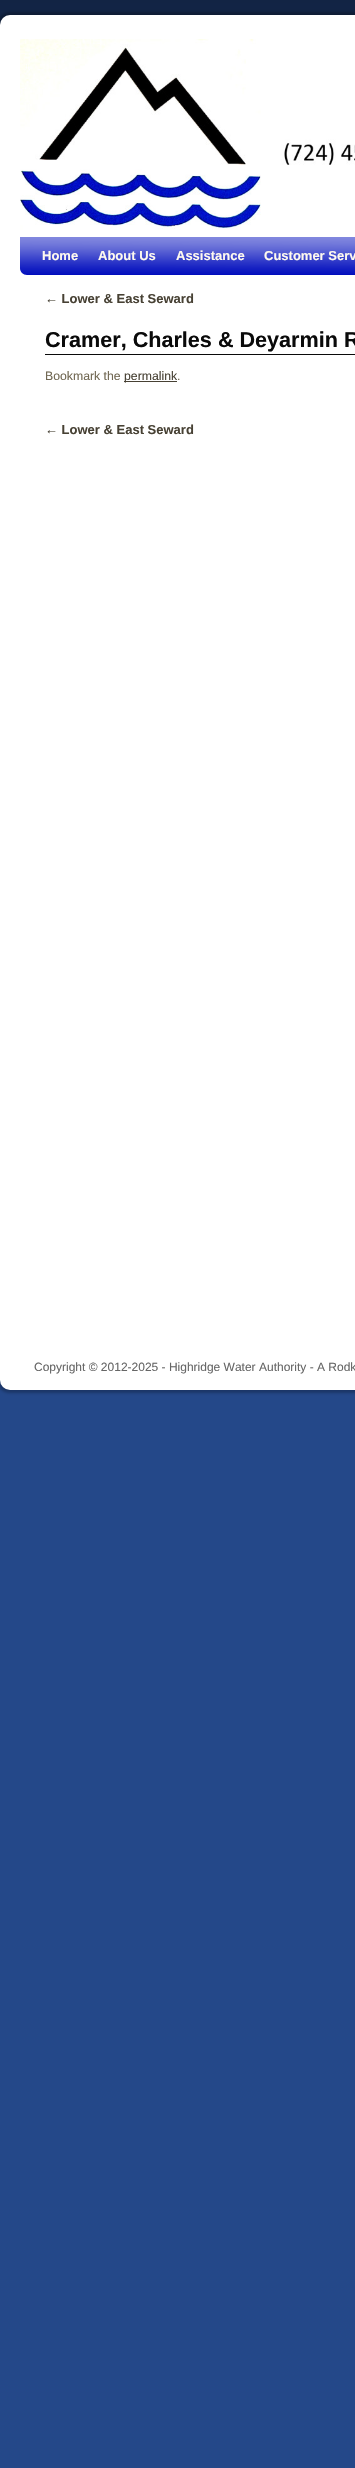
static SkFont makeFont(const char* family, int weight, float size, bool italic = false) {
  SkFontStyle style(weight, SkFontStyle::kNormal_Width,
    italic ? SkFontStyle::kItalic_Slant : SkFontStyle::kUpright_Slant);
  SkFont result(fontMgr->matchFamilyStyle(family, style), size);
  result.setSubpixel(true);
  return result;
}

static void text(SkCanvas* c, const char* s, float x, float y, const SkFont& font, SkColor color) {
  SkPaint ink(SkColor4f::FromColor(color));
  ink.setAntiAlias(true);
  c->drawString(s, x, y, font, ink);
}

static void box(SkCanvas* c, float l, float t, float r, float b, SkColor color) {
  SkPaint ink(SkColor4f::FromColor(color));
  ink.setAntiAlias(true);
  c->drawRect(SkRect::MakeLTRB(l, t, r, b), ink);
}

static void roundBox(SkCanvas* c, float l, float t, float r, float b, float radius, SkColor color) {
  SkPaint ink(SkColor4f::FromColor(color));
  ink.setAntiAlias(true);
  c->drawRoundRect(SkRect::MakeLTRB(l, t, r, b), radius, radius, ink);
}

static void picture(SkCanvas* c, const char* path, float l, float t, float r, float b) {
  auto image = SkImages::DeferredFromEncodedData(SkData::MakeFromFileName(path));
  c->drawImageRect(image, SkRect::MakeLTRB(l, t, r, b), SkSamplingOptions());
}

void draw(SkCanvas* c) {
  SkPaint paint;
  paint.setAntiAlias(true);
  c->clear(0xff244889);
  picture(c, "img_01.png", 0, 0, 355, 25);
  paint.setColor(0x40000000);
  paint.setMaskFilter(SkMaskFilter::MakeBlur(kNormal_SkBlurStyle, 1.5f));
  c->drawRoundRect(SkRect::MakeLTRB(-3, 12, 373, 1393), 13, 13, paint);
  paint.setMaskFilter(nullptr);
  roundBox(c, 0, 15, 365, 1390, 10, 0xffffffff);
  picture(c, "img_02.png", 20, 39, 355, 230);
  paint.setColor(0xff010dbd);
  c->drawPath(SkPathBuilder().moveTo(20, 237).lineTo(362, 237).lineTo(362, 268).cubicTo(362, 272, 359, 275, 355, 275).lineTo(27, 275).cubicTo(23, 275, 20, 272, 20, 268).close().detach(), paint);
  picture(c, "img_03.png", 20, 237, 355, 274);
  SkFont face1 = makeFont("Liberation Sans", 700, 13);
  text(c, "Home", 42, 260, face1, 0xfffffaef);
  text(c, "About Us", 98, 260, face1, 0xfffffaef);
  text(c, "Assistance", 176, 260, face1, 0xfffffaef);
  text(c, "Customer Serv", 264, 260, face1, 0xfffffaef);
  text(c, "← Lower & East Seward", 45, 303, face1, 0xff474134);
  box(c, 45, 354, 355, 355, 0xff0a0a0a);
  SkFont face2 = makeFont("Liberation Sans", 700, 21.6f);
  text(c, "Cramer, Charles & Deyarmin R", 45, 347, face2, 0xff0a0a0a);
  SkFont face3 = makeFont("Liberation Sans", 400, 12.25f);
  text(c, "Bookmark the", 45, 380, face3, 0xff706752);
  box(c, 124, 381, 177, 382, 0xff474134);
  text(c, "permalink", 124, 380, face3, 0xff474134);
  text(c, ".", 177, 380, face3, 0xff706752);
  text(c, "← Lower & East Seward", 45, 434, face1, 0xff474134);
  SkFont face4 = makeFont("Liberation Sans", 400, 12);
  text(c, "Copyright © 2012-2025 - Highridge Water Authority - A Rodk", 34, 1371, face4, 0xff666666);
}
